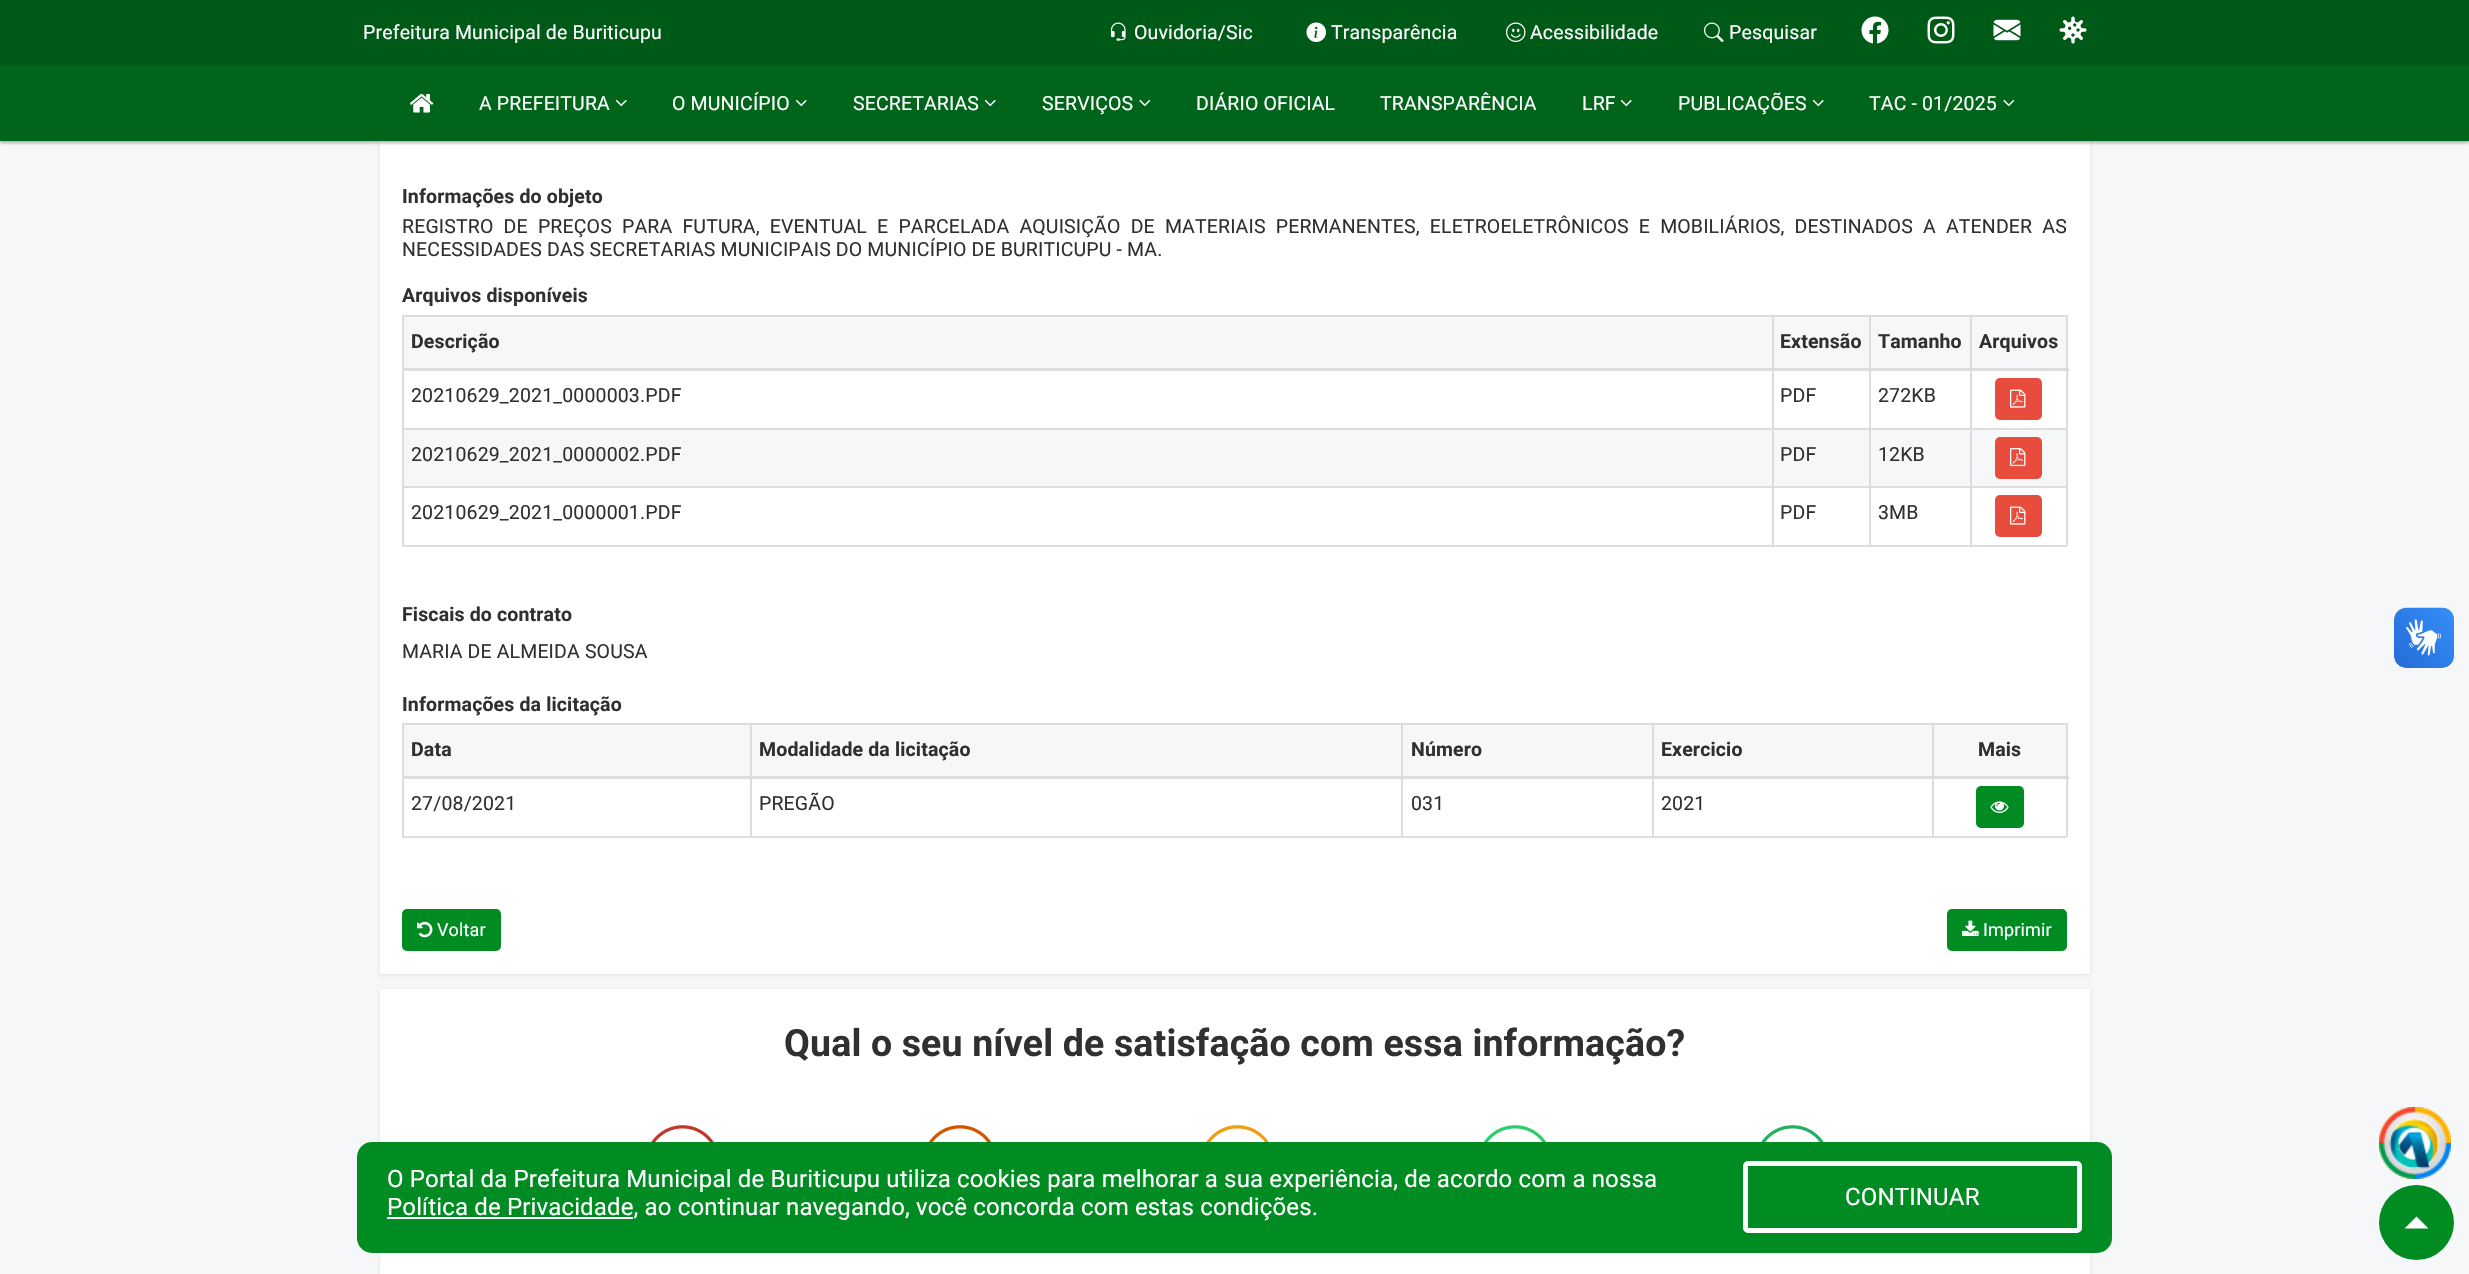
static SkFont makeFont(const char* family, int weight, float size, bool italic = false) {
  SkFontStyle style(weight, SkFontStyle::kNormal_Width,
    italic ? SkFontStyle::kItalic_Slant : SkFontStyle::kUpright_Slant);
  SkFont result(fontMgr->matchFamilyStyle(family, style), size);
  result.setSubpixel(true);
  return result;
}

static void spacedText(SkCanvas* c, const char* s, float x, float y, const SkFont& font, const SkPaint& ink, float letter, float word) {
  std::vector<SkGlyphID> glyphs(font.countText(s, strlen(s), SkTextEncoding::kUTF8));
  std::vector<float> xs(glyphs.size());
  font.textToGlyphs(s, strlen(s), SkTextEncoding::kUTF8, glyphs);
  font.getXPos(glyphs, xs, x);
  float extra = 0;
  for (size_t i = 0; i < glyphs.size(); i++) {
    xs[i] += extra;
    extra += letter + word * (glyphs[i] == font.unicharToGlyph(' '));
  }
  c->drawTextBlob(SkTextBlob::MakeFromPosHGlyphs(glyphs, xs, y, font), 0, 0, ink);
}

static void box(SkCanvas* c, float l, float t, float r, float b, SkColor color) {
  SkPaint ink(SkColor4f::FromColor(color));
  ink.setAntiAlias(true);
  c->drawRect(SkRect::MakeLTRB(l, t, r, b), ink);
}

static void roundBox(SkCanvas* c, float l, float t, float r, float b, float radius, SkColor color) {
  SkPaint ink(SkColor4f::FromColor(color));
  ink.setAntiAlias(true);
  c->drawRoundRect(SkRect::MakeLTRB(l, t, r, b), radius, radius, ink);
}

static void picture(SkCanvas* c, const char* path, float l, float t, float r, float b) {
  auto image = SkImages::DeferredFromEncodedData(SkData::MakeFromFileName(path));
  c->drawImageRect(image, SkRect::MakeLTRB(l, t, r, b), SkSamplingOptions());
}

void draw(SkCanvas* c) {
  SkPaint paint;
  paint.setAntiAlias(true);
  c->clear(0xfff6f7f8);
  paint.setColor(0x17030047);
  paint.setMaskFilter(SkMaskFilter::MakeBlur(kNormal_SkBlurStyle, 2));
  c->drawRect(SkRect::MakeLTRB(380, -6, 2090, 975), paint);
  paint.setMaskFilter(nullptr);
  box(c, 380, 141, 2090, 974, 0xffffffff);
  paint.setColor(0x4d000000);
  paint.setMaskFilter(SkMaskFilter::MakeBlur(kNormal_SkBlurStyle, 1.5f));
  c->drawRect(SkRect::MakeLTRB(0, 2, 2469, 143), paint);
  paint.setMaskFilter(nullptr);
  box(c, 0, 0, 2469, 65, 0xff005a17);
  SkFont face1 = makeFont("Roboto", 400, 19.5f);
  paint.setColor(0xffffffff);
  spacedText(c, "Prefeitura Municipal de Buriticupu", 363, 39, face1, paint, 0.15f, 0);
  picture(c, "img_01.png", 1110, 22, 1126, 41);
  spacedText(c, "Ouvidoria/Sic", 1134, 39, face1, paint, 0.15f, 0);
  picture(c, "img_02.png", 1306, 22, 1326, 42);
  spacedText(c, "Transparência", 1331, 39, face1, paint, 0.15f, 0);
  picture(c, "img_03.png", 1506, 22, 1526, 42);
  spacedText(c, "Acessibilidade", 1530, 39, face1, paint, 0.15f, 0);
  picture(c, "img_04.png", 1704, 22, 1724, 42);
  spacedText(c, "Pesquisar", 1729, 39, face1, paint, 0.15f, 0);
  picture(c, "img_05.png", 1861, 16, 1889, 44);
  picture(c, "img_06.png", 1927, 16, 1955, 44);
  picture(c, "img_07.png", 1993, 19, 2021, 41);
  picture(c, "img_08.png", 2059, 16, 2087, 44);
  box(c, 0, 65, 2469, 141, 0xff00641a);
  picture(c, "img_09.png", 409, 93, 434, 113);
  spacedText(c, "A PREFEITURA", 479, 110, face1, paint, 0.15f, 0);
  picture(c, "img_10.png", 615, 99, 627, 107);
  spacedText(c, "O MUNICÍPIO", 672, 110, face1, paint, 0.15f, 0);
  picture(c, "img_10.png", 795, 99, 807, 107);
  spacedText(c, "SECRETARIAS", 853, 110, face1, paint, 0.15f, 0);
  picture(c, "img_10.png", 984, 99, 996, 107);
  spacedText(c, "SERVIÇOS", 1042, 110, face1, paint, 0.15f, 0);
  picture(c, "img_11.png", 1139, 99, 1151, 107);
  spacedText(c, "DIÁRIO OFICIAL", 1196, 110, face1, paint, 0.15f, 0);
  spacedText(c, "TRANSPARÊNCIA", 1380, 110, face1, paint, 0.15f, 0);
  spacedText(c, "LRF", 1582, 110, face1, paint, 0.15f, 0);
  picture(c, "img_10.png", 1620, 99, 1632, 107);
  spacedText(c, "PUBLICAÇÕES", 1678, 110, face1, paint, 0.15f, 0);
  picture(c, "img_10.png", 1812, 99, 1824, 107);
  spacedText(c, "TAC - 01/2025", 1869, 110, face1, paint, 0.15f, 0);
  picture(c, "img_11.png", 2003, 99, 2015, 107);
  SkFont face2 = makeFont("Roboto", 700, 19.5f);
  paint.setColor(0xff303030);
  spacedText(c, "Informações do objeto", 402, 203, face2, paint, 0.15f, 0);
  spacedText(c, "REGISTRO DE PREÇOS PARA FUTURA, EVENTUAL E PARCELADA AQUISIÇÃO DE MATERIAIS PERMANENTES, ELETROELETRÔNICOS E MOBILIÁRIOS, DESTINADOS A ATENDER AS", 402, 233, face1, paint, 0.15f, 5.1f);
  spacedText(c, "NECESSIDADES DAS SECRETARIAS MUNICIPAIS DO MUNICÍPIO DE BURITICUPU - MA.", 402, 256, face1, paint, 0.15f, 0);
  spacedText(c, "Arquivos disponíveis", 402, 302, face2, paint, 0.15f, 0);
  box(c, 402, 315, 2067, 317, 0xffdddddd);
  box(c, 2066, 315, 2068, 546, 0xffdddddd);
  box(c, 402, 545, 2067, 547, 0xffdddddd);
  box(c, 402, 315, 404, 546, 0xffdddddd);
  box(c, 404, 317, 2066, 368, 0xfff6f7f8);
  spacedText(c, "Descrição", 411, 348, face2, paint, 0.15f, 0);
  spacedText(c, "Extensão", 1780, 348, face2, paint, 0.15f, 0);
  spacedText(c, "Tamanho", 1878, 348, face2, paint, 0.15f, 0);
  box(c, 1970, 428, 2067, 430, 0xffdddddd);
  box(c, 404, 430, 2066, 486, 0xfff6f7f8);
  box(c, 1970, 486, 2067, 488, 0xffdddddd);
  box(c, 1970, 486, 1972, 546, 0xffdddddd);
  box(c, 1869, 486, 1971, 488, 0xffdddddd);
  box(c, 1970, 428, 1972, 488, 0xffdddddd);
  box(c, 1869, 428, 1971, 430, 0xffdddddd);
  box(c, 1869, 486, 1871, 546, 0xffdddddd);
  box(c, 1772, 486, 1871, 488, 0xffdddddd);
  box(c, 1869, 428, 1871, 488, 0xffdddddd);
  box(c, 1772, 428, 1871, 430, 0xffdddddd);
  box(c, 1772, 486, 1774, 546, 0xffdddddd);
  box(c, 402, 486, 1773, 488, 0xffdddddd);
  box(c, 1772, 428, 1774, 488, 0xffdddddd);
  box(c, 402, 428, 1773, 430, 0xffdddddd);
  box(c, 1772, 315, 1774, 429, 0xffdddddd);
  box(c, 1869, 315, 1871, 429, 0xffdddddd);
  box(c, 1970, 315, 1972, 429, 0xffdddddd);
  box(c, 402, 368, 2069, 371, 0xffdddddd);
  spacedText(c, "Arquivos", 1979, 348, face2, paint, 0.15f, 0);
  spacedText(c, "20210629_2021_0000003.PDF", 411, 402, face1, paint, 0.15f, 0);
  spacedText(c, "PDF", 1780, 402, face1, paint, 0.15f, 0);
  spacedText(c, "272KB", 1878, 402, face1, paint, 0.15f, 0);
  roundBox(c, 1995, 378, 2042, 420, 5, 0xffe74c3c);
  picture(c, "img_12.png", 2010, 389, 2026, 408);
  spacedText(c, "20210629_2021_0000002.PDF", 411, 461, face1, paint, 0.15f, 0);
  spacedText(c, "PDF", 1780, 461, face1, paint, 0.15f, 0);
  spacedText(c, "12KB", 1878, 461, face1, paint, 0.15f, 0);
  roundBox(c, 1995, 437, 2042, 479, 5, 0xffe74c3c);
  picture(c, "img_13.png", 2010, 448, 2026, 467);
  spacedText(c, "20210629_2021_0000001.PDF", 411, 519, face1, paint, 0.15f, 0);
  spacedText(c, "PDF", 1780, 519, face1, paint, 0.15f, 0);
  spacedText(c, "3MB", 1878, 519, face1, paint, 0.15f, 0);
  roundBox(c, 1995, 495, 2042, 537, 5, 0xffe74c3c);
  picture(c, "img_12.png", 2010, 506, 2026, 525);
  spacedText(c, "Fiscais do contrato", 402, 621, face2, paint, 0.15f, 0);
  spacedText(c, "MARIA DE ALMEIDA SOUSA", 402, 658, face1, paint, 0.15f, 0);
  spacedText(c, "Informações da licitação", 402, 711, face2, paint, 0.15f, 0);
  box(c, 402, 723, 2067, 725, 0xffdddddd);
  box(c, 2066, 723, 2068, 837, 0xffdddddd);
  box(c, 402, 836, 2067, 838, 0xffdddddd);
  box(c, 402, 723, 404, 837, 0xffdddddd);
  box(c, 404, 725, 2066, 776, 0xfff6f7f8);
  spacedText(c, "Data", 411, 756, face2, paint, 0.15f, 0);
  spacedText(c, "Modalidade da licitação", 759, 756, face2, paint, 0.15f, 0);
  spacedText(c, "Número", 1411, 756, face2, paint, 0.15f, 0);
  spacedText(c, "Exercicio", 1661, 756, face2, paint, 0.15f, 0);
  box(c, 750, 723, 752, 837, 0xffdddddd);
  box(c, 1401, 723, 1403, 837, 0xffdddddd);
  box(c, 1652, 723, 1654, 837, 0xffdddddd);
  box(c, 1932, 723, 1934, 837, 0xffdddddd);
  box(c, 402, 776, 2069, 779, 0xffdddddd);
  spacedText(c, "Mais", 1978, 756, face2, paint, 0.15f, 0);
  spacedText(c, "27/08/2021", 411, 810, face1, paint, 0.15f, 0);
  spacedText(c, "PREGÃO", 759, 810, face1, paint, 0.15f, 0);
  spacedText(c, "031", 1411, 810, face1, paint, 0.15f, 0);
  spacedText(c, "2021", 1661, 810, face1, paint, 0.15f, 0);
  roundBox(c, 1976, 786, 2024, 828, 5, 0xff008c23);
  picture(c, "img_14.png", 1990, 801, 2009, 813);
  roundBox(c, 402, 909, 501, 951, 5, 0xff008c23);
  picture(c, "img_15.png", 417, 921, 433, 938);
  SkFont face3 = makeFont("Roboto", 400, 18);
  paint.setColor(0xffffffff);
  spacedText(c, "Voltar", 437, 936, face3, paint, 0.15f, 0);
  roundBox(c, 1947, 909, 2067, 951, 5, 0xff008c23);
  picture(c, "img_16.png", 1962, 920, 1979, 936);
  spacedText(c, "Imprimir", 1983, 936, face3, paint, 0.15f, 0);
  picture(c, "img_17.png", 2394, 607, 2454, 668);
  picture(c, "img_18.png", 2394, 608, 2454, 668);
  paint.setColor(0x17030047);
  paint.setMaskFilter(SkMaskFilter::MakeBlur(kNormal_SkBlurStyle, 2));
  c->drawRect(SkRect::MakeLTRB(380, 990, 2090, 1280), paint);
  paint.setMaskFilter(nullptr);
  box(c, 380, 989, 2090, 1274, 0xffffffff);
  SkFont face4 = makeFont("Roboto", 700, 37.5f);
  paint.setColor(0xff303030);
  spacedText(c, "Qual o seu nível de satisfação com essa informação?", 784, 1056, face4, paint, 0.15f, 0);
  picture(c, "img_19.png", 651, 1125, 714, 1142);
  picture(c, "img_20.png", 928, 1125, 992, 1142);
  picture(c, "img_21.png", 1206, 1125, 1269, 1142);
  picture(c, "img_22.png", 1483, 1125, 1547, 1142);
  picture(c, "img_23.png", 1761, 1125, 1824, 1142);
  picture(c, "img_24.png", 2379, 1107, 2451, 1179);
  roundBox(c, 357, 1142, 2112, 1253, 15, 0xff008c23);
  SkFont face5 = makeFont("Roboto", 400, 24);
  paint.setColor(0xffffffff);
  spacedText(c, "O Portal da Prefeitura Municipal de Buriticupu utiliza cookies para melhorar a sua experiência, de acordo com a nossa", 387, 1187, face5, paint, 0.15f, 0);
  box(c, 387, 1217, 633, 1219, 0xffffffff);
  spacedText(c, "Política de Privacidade, ao continuar navegando, você concorda com estas condições.", 387, 1215, face5, paint, 0.15f, 0);
  paint.setStyle(SkPaint::kStroke_Style);
  paint.setStrokeWidth(5);
  c->drawRoundRect(SkRect::MakeLTRB(1745.5f, 1163.5f, 2079.5f, 1230.5f), 2.5f, 2.5f, paint);
  paint.setStyle(SkPaint::kFill_Style);
  spacedText(c, "CONTINUAR", 1845, 1205, face5, paint, 0.15f, 0);
  paint.setColor(0xff008c23);
  c->drawCircle(2416.5f, 1222.5f, 37.5f, paint);
  paint.setColor(0xffffffff);
  c->drawPath(SkPathBuilder().moveTo(2428.5f, 1228.5f).lineTo(2404.5f, 1228.5f).lineTo(2416.5f, 1216.5f).close().detach(), paint);
}
